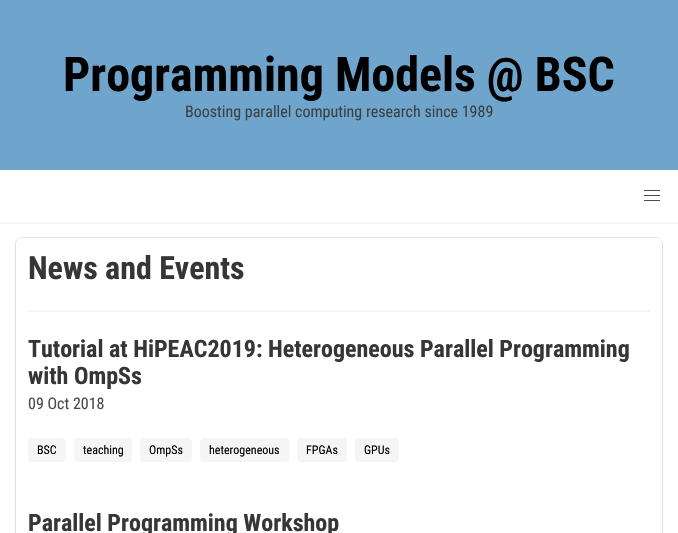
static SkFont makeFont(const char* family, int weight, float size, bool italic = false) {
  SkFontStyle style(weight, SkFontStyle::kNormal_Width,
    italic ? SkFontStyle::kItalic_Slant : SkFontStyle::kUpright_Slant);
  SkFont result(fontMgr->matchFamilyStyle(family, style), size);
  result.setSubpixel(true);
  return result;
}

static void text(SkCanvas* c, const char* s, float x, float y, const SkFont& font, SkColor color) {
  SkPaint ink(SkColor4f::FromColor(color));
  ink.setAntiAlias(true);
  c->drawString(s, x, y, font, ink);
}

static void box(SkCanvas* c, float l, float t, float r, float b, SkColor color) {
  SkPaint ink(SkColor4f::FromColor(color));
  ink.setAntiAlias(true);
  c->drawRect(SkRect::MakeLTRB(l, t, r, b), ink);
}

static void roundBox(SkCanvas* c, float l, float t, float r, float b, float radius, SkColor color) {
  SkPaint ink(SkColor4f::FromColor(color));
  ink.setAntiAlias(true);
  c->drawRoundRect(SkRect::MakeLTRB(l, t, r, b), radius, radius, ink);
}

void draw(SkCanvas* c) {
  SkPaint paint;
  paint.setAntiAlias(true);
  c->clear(0xffffffff);
  box(c, 0, 0, 678, 170, 0xff6fa5cc);
  SkFont face1 = makeFont("Roboto Condensed", 700, 48);
  text(c, "Programming Models @ BSC", 63, 91, face1, 0xff000000);
  SkFont face2 = makeFont("Roboto Condensed", 400, 16);
  text(c, "Boosting parallel computing research since 1989", 185, 117, face2, 0xff3c4145);
  box(c, 0, 222, 678, 224, 0xfff5f5f5);
  box(c, 644, 190, 660, 191, 0xff4a4a4a);
  box(c, 644, 195, 660, 196, 0xff4a4a4a);
  box(c, 644, 200, 660, 201, 0xff4a4a4a);
  paint.setStyle(SkPaint::kStroke_Style);
  paint.setStrokeWidth(1);
  paint.setColor(0xffe7e7e7);
  c->drawRoundRect(SkRect::MakeLTRB(15.5f, 237.5f, 662.5f, 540.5f), 6.5f, 6.5f, paint);
  paint.setStyle(SkPaint::kFill_Style);
  paint.setColor(0x1a0a0a0a);
  paint.setMaskFilter(SkMaskFilter::MakeBlur(kNormal_SkBlurStyle, 1.5f));
  c->drawRoundRect(SkRect::MakeLTRB(16, 240, 662, 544), 6, 6, paint);
  paint.setMaskFilter(nullptr);
  roundBox(c, 16, 238, 662, 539, 6, 0xffffffff);
  SkFont face3 = makeFont("Roboto Condensed", 700, 32);
  text(c, "News and Events", 28, 279, face3, 0xff363636);
  box(c, 28, 310, 650, 312, 0xfff5f5f5);
  SkFont face4 = makeFont("Roboto Condensed", 700, 24);
  text(c, "Tutorial at HiPEAC2019: Heterogeneous Parallel Programming", 28, 357, face4, 0xff363636);
  text(c, "with OmpSs", 28, 384, face4, 0xff363636);
  text(c, "09 Oct 2018", 28, 409, face2, 0xff4a4a4a);
  roundBox(c, 28, 438, 66, 462, 4, 0xfff5f5f5);
  SkFont face5 = makeFont("Roboto Condensed", 400, 12);
  text(c, "BSC", 37, 454, face5, 0xff000000);
  roundBox(c, 74, 438, 132, 462, 4, 0xfff5f5f5);
  text(c, "teaching", 83, 454, face5, 0xff000000);
  roundBox(c, 140, 438, 192, 462, 4, 0xfff5f5f5);
  text(c, "OmpSs", 149, 454, face5, 0xff000000);
  roundBox(c, 200, 438, 289, 462, 4, 0xfff5f5f5);
  text(c, "heterogeneous", 209, 454, face5, 0xff000000);
  roundBox(c, 297, 438, 347, 462, 4, 0xfff5f5f5);
  text(c, "FPGAs", 306, 454, face5, 0xff000000);
  roundBox(c, 355, 438, 399, 462, 4, 0xfff5f5f5);
  text(c, "GPUs", 364, 454, face5, 0xff000000);
  text(c, "Parallel Programming Workshop", 28, 531, face4, 0xff363636);
}
